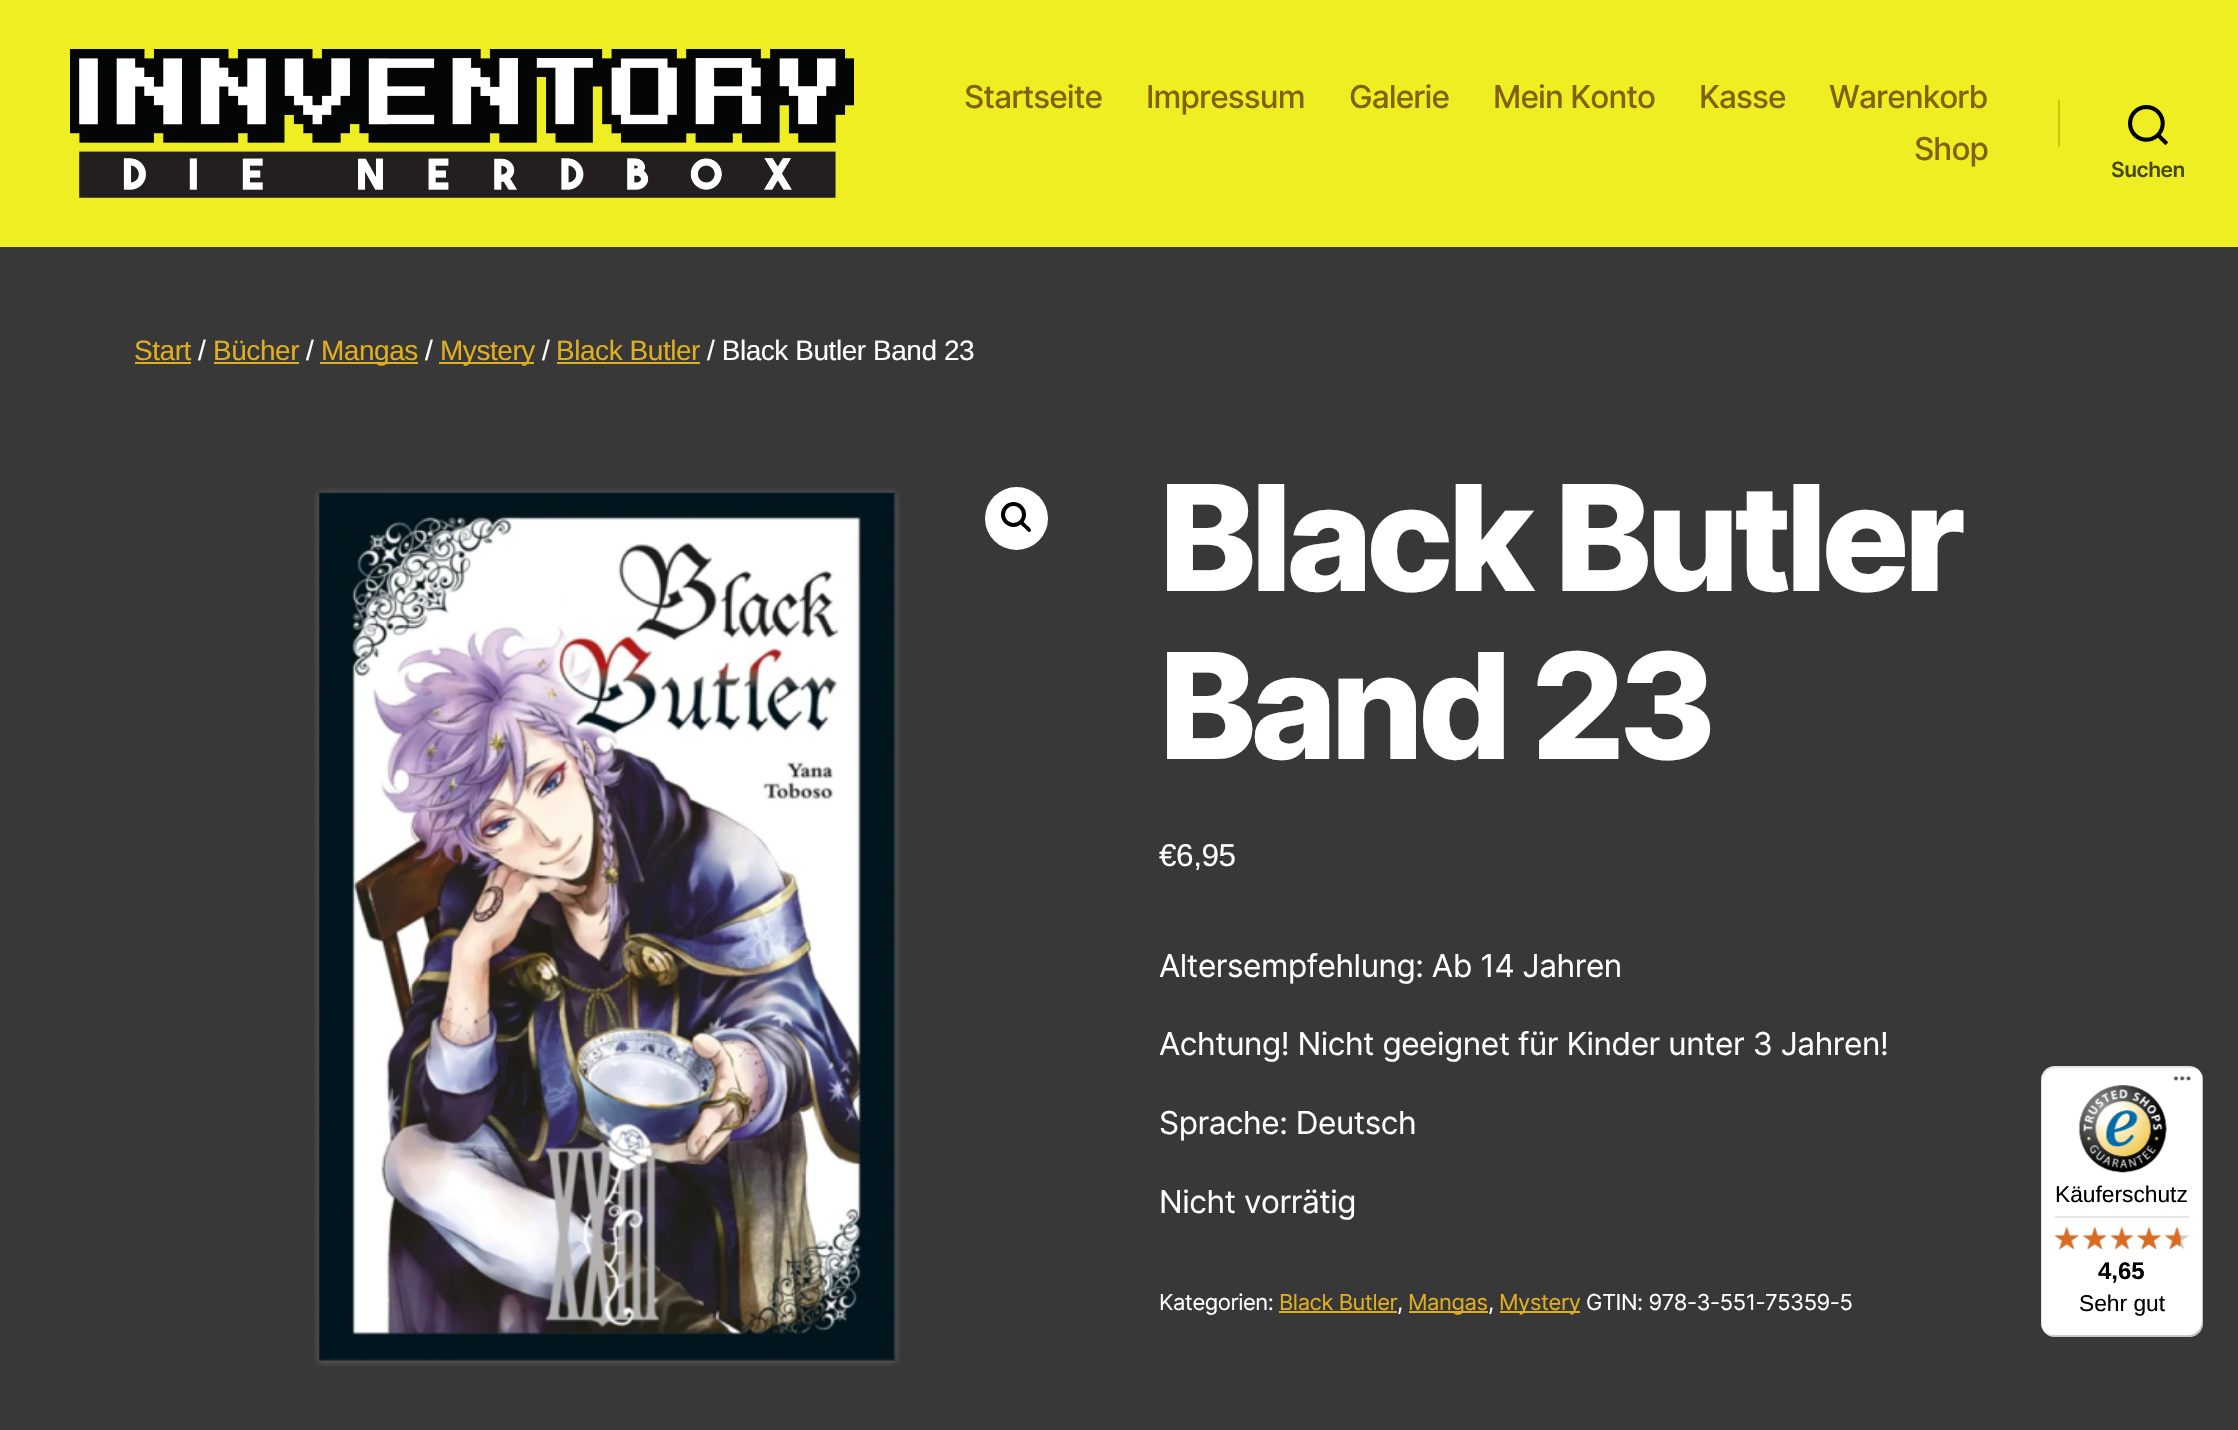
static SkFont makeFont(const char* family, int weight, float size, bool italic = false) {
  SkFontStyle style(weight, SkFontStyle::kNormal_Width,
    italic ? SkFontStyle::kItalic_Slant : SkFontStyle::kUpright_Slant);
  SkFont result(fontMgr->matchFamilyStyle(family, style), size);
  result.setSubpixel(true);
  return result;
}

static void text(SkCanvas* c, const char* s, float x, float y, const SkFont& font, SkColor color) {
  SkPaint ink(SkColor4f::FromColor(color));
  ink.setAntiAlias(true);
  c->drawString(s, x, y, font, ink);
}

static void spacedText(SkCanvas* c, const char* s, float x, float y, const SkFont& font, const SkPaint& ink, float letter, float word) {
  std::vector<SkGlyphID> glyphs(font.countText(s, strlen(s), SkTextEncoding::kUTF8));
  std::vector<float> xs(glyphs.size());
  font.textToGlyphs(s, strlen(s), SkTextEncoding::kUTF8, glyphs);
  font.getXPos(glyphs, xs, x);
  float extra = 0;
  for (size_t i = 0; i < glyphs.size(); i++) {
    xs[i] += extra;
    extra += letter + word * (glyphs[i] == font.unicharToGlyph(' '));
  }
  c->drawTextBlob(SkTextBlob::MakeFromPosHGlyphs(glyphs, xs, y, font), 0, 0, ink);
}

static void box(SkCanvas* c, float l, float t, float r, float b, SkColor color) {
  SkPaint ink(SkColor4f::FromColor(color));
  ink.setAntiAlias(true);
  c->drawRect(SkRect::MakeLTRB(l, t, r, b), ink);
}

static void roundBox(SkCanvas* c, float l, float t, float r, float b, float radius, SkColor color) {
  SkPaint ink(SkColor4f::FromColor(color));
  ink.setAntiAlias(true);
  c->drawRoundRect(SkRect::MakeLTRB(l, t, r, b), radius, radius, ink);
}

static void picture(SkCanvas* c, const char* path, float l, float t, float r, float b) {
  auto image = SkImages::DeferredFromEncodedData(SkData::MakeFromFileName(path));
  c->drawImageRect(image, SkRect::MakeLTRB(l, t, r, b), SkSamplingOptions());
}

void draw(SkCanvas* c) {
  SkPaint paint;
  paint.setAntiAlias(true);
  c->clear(0xff383838);
  box(c, 0, 0, 2238, 247, 0xffeeee22);
  picture(c, "img_01.png", 70, 49, 854, 198);
  SkFont face1 = makeFont("Inter", 500, 31.5f);
  paint.setColor(0xff7f620a);
  spacedText(c, "Startseite", 964, 108, face1, paint, -0.9f, 0);
  spacedText(c, "Impressum", 1146, 108, face1, paint, -0.9f, 0);
  spacedText(c, "Galerie", 1349, 108, face1, paint, -0.9f, 0);
  spacedText(c, "Mein Konto", 1493, 108, face1, paint, -0.9f, 0);
  spacedText(c, "Kasse", 1699, 108, face1, paint, -0.9f, 0);
  spacedText(c, "Warenkorb", 1829, 108, face1, paint, -0.9f, 0);
  spacedText(c, "Shop", 1914, 160, face1, paint, -0.9f, 0);
  box(c, 2058, 100, 2060, 147, 0xffc9c90c);
  picture(c, "img_02.png", 2128, 105, 2168, 146);
  SkFont face2 = makeFont("Inter", 600, 21);
  paint.setColor(0xff48481d);
  spacedText(c, "Suchen", 2111, 177, face2, paint, -0.45f, 0);
  SkFont face3 = makeFont("Liberation Sans", 400, 28);
  paint.setColor(0xffdfaf1f);
  spacedText(c, "Start", 134, 360, face3, paint, -0.45f, 0);
  box(c, 135, 362, 191, 364, 0xffdfaf1f);
  paint.setColor(0xffffffff);
  spacedText(c, "/", 198, 360, face3, paint, -0.45f, 0);
  paint.setColor(0xffdfaf1f);
  spacedText(c, "Bücher", 213, 360, face3, paint, -0.45f, 0);
  box(c, 214, 362, 299, 364, 0xffdfaf1f);
  paint.setColor(0xffffffff);
  spacedText(c, "/", 306, 360, face3, paint, -0.45f, 0);
  box(c, 320, 362, 418, 364, 0xffdfaf1f);
  paint.setColor(0xffdfaf1f);
  spacedText(c, "Mangas", 321, 360, face3, paint, -0.45f, 0);
  paint.setColor(0xffffffff);
  spacedText(c, "/", 425, 360, face3, paint, -0.45f, 0);
  box(c, 439, 362, 534, 364, 0xffdfaf1f);
  paint.setColor(0xffdfaf1f);
  spacedText(c, "Mystery", 440, 360, face3, paint, -0.45f, 0);
  paint.setColor(0xffffffff);
  spacedText(c, "/", 542, 360, face3, paint, -0.45f, 0);
  paint.setColor(0xffdfaf1f);
  spacedText(c, "Black Butler", 556, 360, face3, paint, -0.45f, 0);
  box(c, 557, 362, 700, 364, 0xffdfaf1f);
  paint.setColor(0xffffffff);
  spacedText(c, "/ Black Butler Band 23", 707, 360, face3, paint, -0.45f, 0);
  picture(c, "img_03.png", 314, 488, 900, 1367);
  c->drawCircle(1016.5f, 518.5f, 31.5f, paint);
  paint.setStyle(SkPaint::kStroke_Style);
  paint.setStrokeWidth(4);
  paint.setColor(0xff000000);
  c->drawCircle(1013.5f, 514.5f, 10.5f, paint);
  paint.setStyle(SkPaint::kFill_Style);
  c->drawPath(SkPathBuilder().moveTo(1020.5f, 521.5f).cubicTo(1022.5f, 519.5f, 1025.5f, 524, 1026.5f, 525).cubicTo(1028, 526, 1032.5f, 529.5f, 1030.5f, 531.5f).cubicTo(1028.5f, 533.5f, 1025.5f, 528.5f, 1024, 527.5f).cubicTo(1023, 526.5f, 1018.5f, 523.5f, 1020.5f, 521.5f).close().detach(), paint);
  SkFont face4 = makeFont("Inter", 800, 147);
  paint.setColor(0xffffffff);
  spacedText(c, "Black Butler", 1159, 591, face4, paint, -6.1f, 0);
  spacedText(c, "Band 23", 1159, 759, face4, paint, -6.1f, 0);
  SkFont face5 = makeFont("Liberation Sans", 400, 31.5f);
  spacedText(c, "€6,95", 1159, 866, face5, paint, -0.45f, 0);
  SkFont face6 = makeFont("Inter", 400, 31.5f);
  spacedText(c, "Altersempfehlung: Ab 14 Jahren", 1159, 977, face6, paint, -0.45f, 0);
  spacedText(c, "Achtung! Nicht geeignet für Kinder unter 3 Jahren!", 1159, 1055, face6, paint, -0.45f, 0);
  spacedText(c, "Sprache: Deutsch", 1159, 1134, face6, paint, -0.45f, 0);
  spacedText(c, "Nicht vorrätig", 1159, 1213, face6, paint, -0.45f, 0);
  SkFont face7 = makeFont("Inter", 400, 22);
  spacedText(c, "Kategorien:", 1159, 1310, face7, paint, -0.45f, 0);
  paint.setColor(0xffdfaf1f);
  spacedText(c, "Black Butler", 1279, 1310, face7, paint, -0.45f, 0);
  paint.setColor(0xffffffff);
  spacedText(c, ",", 1397, 1310, face7, paint, -0.45f, 0);
  box(c, 1279, 1311, 1397, 1313, 0xffdfaf1f);
  box(c, 1409, 1311, 1488, 1313, 0xffdfaf1f);
  paint.setColor(0xffdfaf1f);
  spacedText(c, "Mangas", 1408, 1310, face7, paint, -0.45f, 0);
  paint.setColor(0xffffffff);
  spacedText(c, ",", 1488, 1310, face7, paint, -0.45f, 0);
  box(c, 1500, 1311, 1580, 1313, 0xffdfaf1f);
  paint.setColor(0xffdfaf1f);
  spacedText(c, "Mystery", 1499, 1310, face7, paint, -0.45f, 0);
  paint.setColor(0xffffffff);
  spacedText(c, "GTIN: 978-3-551-75359-5", 1586, 1310, face7, paint, -0.45f, 0);
  roundBox(c, 2041, 1066, 2203, 1337, 14, 0xffffffff);
  paint.setColor(0x1a000000);
  c->drawPath(SkPathBuilder().moveTo(2056, 1068).lineTo(2191, 1068).cubicTo(2194, 1068, 2197, 1069, 2199, 1071).cubicTo(2197, 1068, 2193, 1066, 2189, 1066).lineTo(2055, 1066).cubicTo(2047, 1066, 2041, 1072, 2041, 1080).lineTo(2041, 1323).cubicTo(2041, 1326, 2042, 1329, 2044, 1332).cubicTo(2043, 1330, 2042, 1327, 2042, 1325).lineTo(2042, 1082).cubicTo(2042, 1074, 2049, 1068, 2056, 1068).close().detach(), paint);
  paint.setColor(0x33000000);
  c->drawPath(SkPathBuilder().moveTo(2045, 1332).cubicTo(2047, 1335, 2051, 1337, 2055, 1337).lineTo(2189, 1337).cubicTo(2197, 1337, 2203, 1331, 2203, 1323).lineTo(2203, 1080).cubicTo(2203, 1077, 2202, 1075, 2201, 1073).cubicTo(2202, 1074, 2202, 1076, 2202, 1078).lineTo(2202, 1321).cubicTo(2202, 1329, 2195, 1335, 2188, 1335).lineTo(2053, 1335).cubicTo(2050, 1335, 2047, 1334, 2045, 1332).close().detach(), paint);
  paint.setColor(0x33323232);
  c->drawPath(SkPathBuilder().moveTo(2047, 1335).cubicTo(2049, 1336, 2052, 1337, 2055, 1337).lineTo(2189, 1337).cubicTo(2197, 1337, 2203, 1331, 2203, 1323).lineTo(2203, 1080).cubicTo(2203, 1076, 2202, 1073, 2199, 1071).cubicTo(2201, 1073, 2202, 1076, 2202, 1079).lineTo(2202, 1322).cubicTo(2202, 1330, 2196, 1336, 2188, 1336).lineTo(2053, 1336).cubicTo(2051, 1336, 2049, 1336, 2047, 1335).close().detach(), paint);
  paint.setColor(0x4dffffff);
  c->drawPath(SkPathBuilder().moveTo(2046, 1333).cubicTo(2048, 1336, 2051, 1337, 2055, 1337).lineTo(2189, 1337).cubicTo(2197, 1337, 2203, 1331, 2203, 1323).lineTo(2203, 1080).cubicTo(2203, 1076, 2202, 1073, 2199, 1071).cubicTo(2201, 1073, 2202, 1076, 2202, 1079).lineTo(2202, 1322).cubicTo(2202, 1330, 2196, 1336, 2188, 1336).lineTo(2054, 1336).cubicTo(2051, 1336, 2048, 1335, 2046, 1333).close().detach(), paint);
  picture(c, "img_04.png", 2173, 1076, 2191, 1081);
  picture(c, "img_05.png", 2079, 1085, 2167, 1173);
  SkFont face8 = makeFont("Liberation Sans", 400, 22.75f);
  text(c, "Käuferschutz", 2055, 1202, face8, 0xff000000);
  box(c, 2055, 1216, 2189, 1218, 0xffe5e5e5);
  picture(c, "img_11.png", 2054, 1227, 2079, 1250);
  picture(c, "img_06.png", 2054, 1226, 2079, 1250);
  picture(c, "img_12.png", 2083, 1227, 2107, 1250);
  picture(c, "img_07.png", 2082, 1226, 2107, 1250);
  picture(c, "img_13.png", 2110, 1227, 2133, 1250);
  picture(c, "img_08.png", 2110, 1226, 2134, 1250);
  picture(c, "img_14.png", 2137, 1227, 2161, 1249);
  picture(c, "img_09.png", 2136, 1226, 2161, 1250);
  picture(c, "img_15.png", 2165, 1227, 2189, 1250);
  picture(c, "img_10.png", 2164, 1226, 2181, 1250);
  SkFont face9 = makeFont("Liberation Sans", 700, 24);
  text(c, "4,65", 2098, 1279, face9, 0xff000000);
  text(c, "Sehr gut", 2079, 1311, face8, 0xff000000);
}
